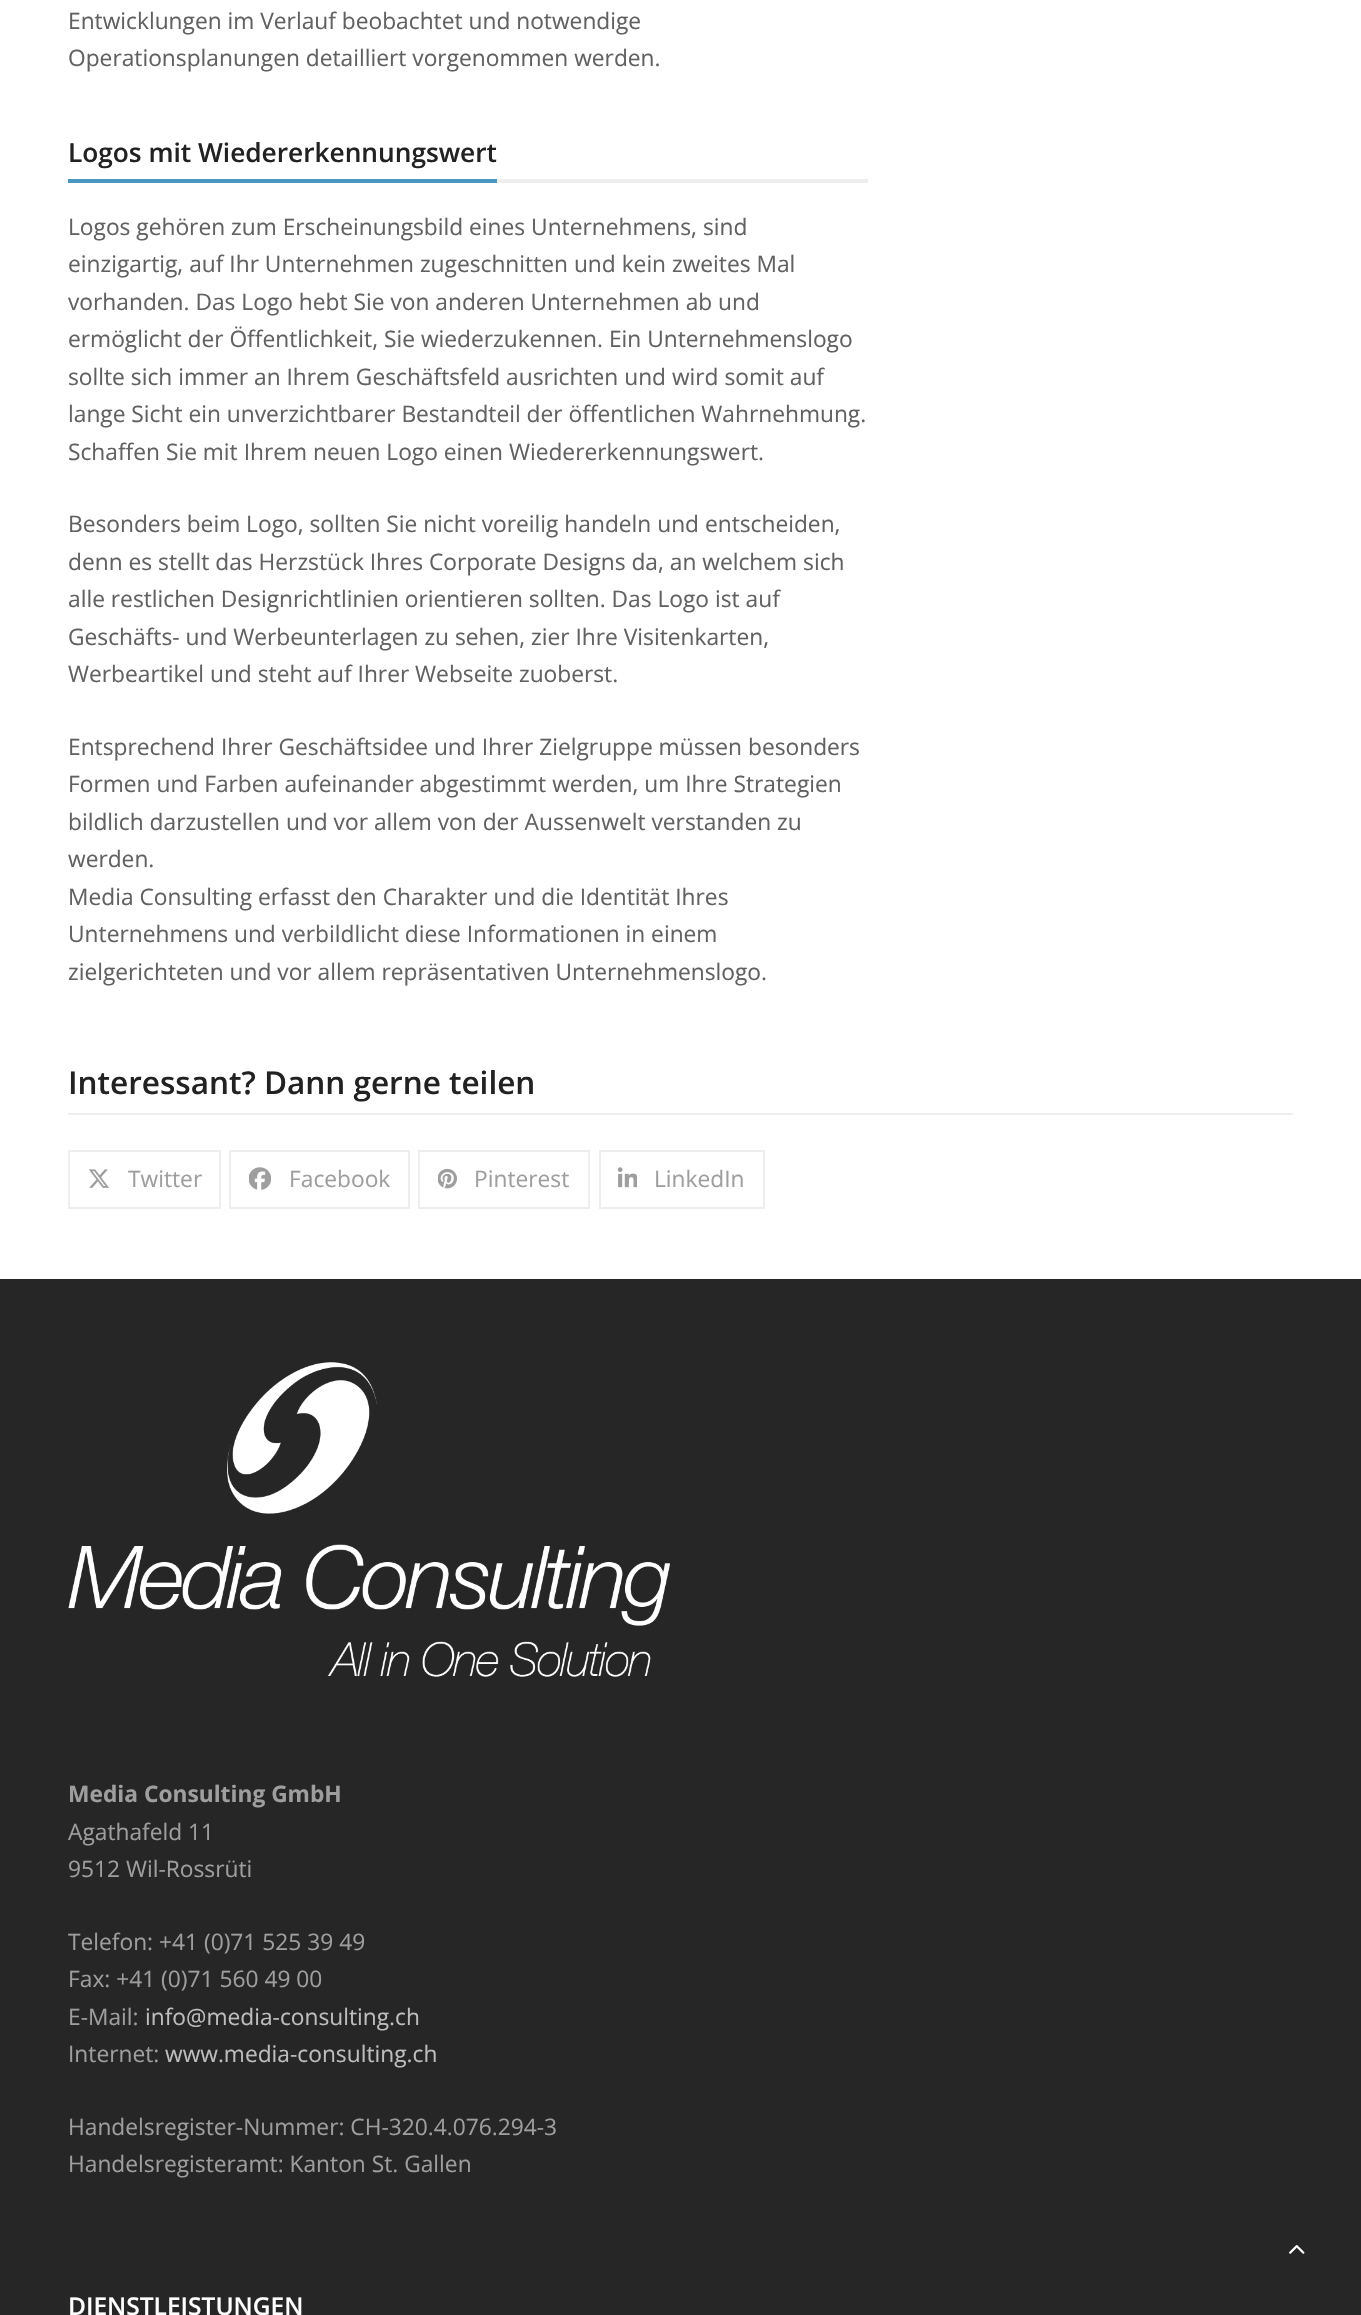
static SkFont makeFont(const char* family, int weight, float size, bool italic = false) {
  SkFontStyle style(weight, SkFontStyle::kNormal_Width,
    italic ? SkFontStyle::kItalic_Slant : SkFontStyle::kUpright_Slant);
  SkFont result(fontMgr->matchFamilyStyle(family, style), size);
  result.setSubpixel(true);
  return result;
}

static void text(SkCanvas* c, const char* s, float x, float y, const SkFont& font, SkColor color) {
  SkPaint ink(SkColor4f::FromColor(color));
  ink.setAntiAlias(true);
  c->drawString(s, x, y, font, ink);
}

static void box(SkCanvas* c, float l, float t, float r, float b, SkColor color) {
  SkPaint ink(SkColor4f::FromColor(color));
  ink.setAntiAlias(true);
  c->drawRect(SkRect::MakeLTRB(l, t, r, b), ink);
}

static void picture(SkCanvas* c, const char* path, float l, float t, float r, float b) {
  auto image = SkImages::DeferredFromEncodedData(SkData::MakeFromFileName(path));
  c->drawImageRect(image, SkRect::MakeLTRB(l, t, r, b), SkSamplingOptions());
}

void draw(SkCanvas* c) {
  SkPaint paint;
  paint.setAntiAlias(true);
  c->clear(0xffffffff);
  SkFont face1 = makeFont("Open Sans", 400, 22.75f);
  text(c, "Entwicklungen im Verlauf beobachtet und notwendige", 68, 29, face1, 0xff616161);
  text(c, "Operationsplanungen detailliert vorgenommen werden.", 68, 66, face1, 0xff616161);
  box(c, 497, 179, 868, 183, 0xffeeeeee);
  box(c, 68, 179, 497, 183, 0xff4a97c2);
  SkFont face2 = makeFont("Open Sans", 600, 26.25f);
  text(c, "Logos mit Wiedererkennungswert", 68, 162, face2, 0xff222222);
  text(c, "Logos gehören zum Erscheinungsbild eines Unternehmens, sind", 68, 235, face1, 0xff616161);
  text(c, "einzigartig, auf Ihr Unternehmen zugeschnitten und kein zweites Mal", 68, 272, face1, 0xff616161);
  text(c, "vorhanden. Das Logo hebt Sie von anderen Unternehmen ab und", 68, 310, face1, 0xff616161);
  text(c, "ermöglicht der Öffentlichkeit, Sie wiederzukennen. Ein Unternehmenslogo", 68, 347, face1, 0xff616161);
  text(c, "sollte sich immer an Ihrem Geschäftsfeld ausrichten und wird somit auf", 68, 385, face1, 0xff616161);
  text(c, "lange Sicht ein unverzichtbarer Bestandteil der öffentlichen Wahrnehmung.", 68, 422, face1, 0xff616161);
  text(c, "Schaffen Sie mit Ihrem neuen Logo einen Wiedererkennungswert.", 68, 460, face1, 0xff616161);
  text(c, "Besonders beim Logo, sollten Sie nicht voreilig handeln und entscheiden,", 68, 532, face1, 0xff616161);
  text(c, "denn es stellt das Herzstück Ihres Corporate Designs da, an welchem sich", 68, 570, face1, 0xff616161);
  text(c, "alle restlichen Designrichtlinien orientieren sollten. Das Logo ist auf", 68, 607, face1, 0xff616161);
  text(c, "Geschäfts- und Werbeunterlagen zu sehen, zier Ihre Visitenkarten,", 68, 645, face1, 0xff616161);
  text(c, "Werbeartikel und steht auf Ihrer Webseite zuoberst.", 68, 682, face1, 0xff616161);
  text(c, "Entsprechend Ihrer Geschäftsidee und Ihrer Zielgruppe müssen besonders", 68, 755, face1, 0xff616161);
  text(c, "Formen und Farben aufeinander abgestimmt werden, um Ihre Strategien", 68, 792, face1, 0xff616161);
  text(c, "bildlich darzustellen und vor allem von der Aussenwelt verstanden zu", 68, 830, face1, 0xff616161);
  text(c, "werden.", 68, 867, face1, 0xff616161);
  text(c, "Media Consulting erfasst den Charakter und die Identität Ihres", 68, 905, face1, 0xff616161);
  text(c, "Unternehmens und verbildlicht diese Informationen in einem", 68, 942, face1, 0xff616161);
  text(c, "zielgerichteten und vor allem repräsentativen Unternehmenslogo.", 68, 980, face1, 0xff616161);
  box(c, 68, 1113, 1293, 1115, 0xffeeeeee);
  SkFont face3 = makeFont("Open Sans", 600, 31.5f);
  text(c, "Interessant? Dann gerne teilen", 68, 1094, face3, 0xff222222);
  paint.setStyle(SkPaint::kStroke_Style);
  paint.setStrokeWidth(2);
  paint.setColor(0xffeeeeee);
  c->drawRect(SkRect::MakeLTRB(69, 1151, 220, 1208), paint);
  picture(c, "img_01.png", 88, 1169, 109, 1188);
  text(c, "Twitter", 128, 1187, face1, 0xff9e9e9e);
  c->drawRect(SkRect::MakeLTRB(230, 1151, 409, 1208), paint);
  picture(c, "img_02.png", 249, 1167, 271, 1190);
  text(c, "Facebook", 289, 1187, face1, 0xff9e9e9e);
  c->drawRect(SkRect::MakeLTRB(419, 1151, 589, 1208), paint);
  picture(c, "img_03.png", 438, 1168, 457, 1189);
  text(c, "Pinterest", 474, 1187, face1, 0xff9e9e9e);
  c->drawRect(SkRect::MakeLTRB(600, 1151, 764, 1208), paint);
  picture(c, "img_04.png", 618, 1167, 637, 1188);
  text(c, "LinkedIn", 654, 1187, face1, 0xff9e9e9e);
  box(c, 0, 1279, 1361, 2315, 0xff262626);
  picture(c, "img_05.png", 68, 1362, 670, 1677);
  SkFont face4 = makeFont("Open Sans", 700, 22.75f);
  text(c, "Media Consulting GmbH", 68, 1802, face4, 0xff9e9e9e);
  text(c, "Agathafeld 11", 68, 1840, face1, 0xff9e9e9e);
  text(c, "9512 Wil-Rossrüti", 68, 1877, face1, 0xff9e9e9e);
  text(c, "Telefon: +41 (0)71 525 39 49", 68, 1950, face1, 0xff9e9e9e);
  text(c, "Fax: +41 (0)71 560 49 00", 68, 1987, face1, 0xff9e9e9e);
  text(c, "E-Mail:", 68, 2025, face1, 0xff9e9e9e);
  text(c, "info@media-consulting.ch", 145, 2025, face1, 0xffbdbdbd);
  text(c, "Internet:", 68, 2062, face1, 0xff9e9e9e);
  text(c, "www.media-consulting.ch", 165, 2062, face1, 0xffbdbdbd);
  text(c, "Handelsregister-Nummer: CH-320.4.076.294-3", 68, 2135, face1, 0xff9e9e9e);
  text(c, "Handelsregisteramt: Kanton St. Gallen", 68, 2172, face1, 0xff9e9e9e);
  SkFont face5 = makeFont("Open Sans", 600, 24.5f);
  text(c, "DIENSTLEISTUNGEN", 68, 2315, face5, 0xffffffff);
  picture(c, "img_06.png", 1289, 2245, 1305, 2254);
}
